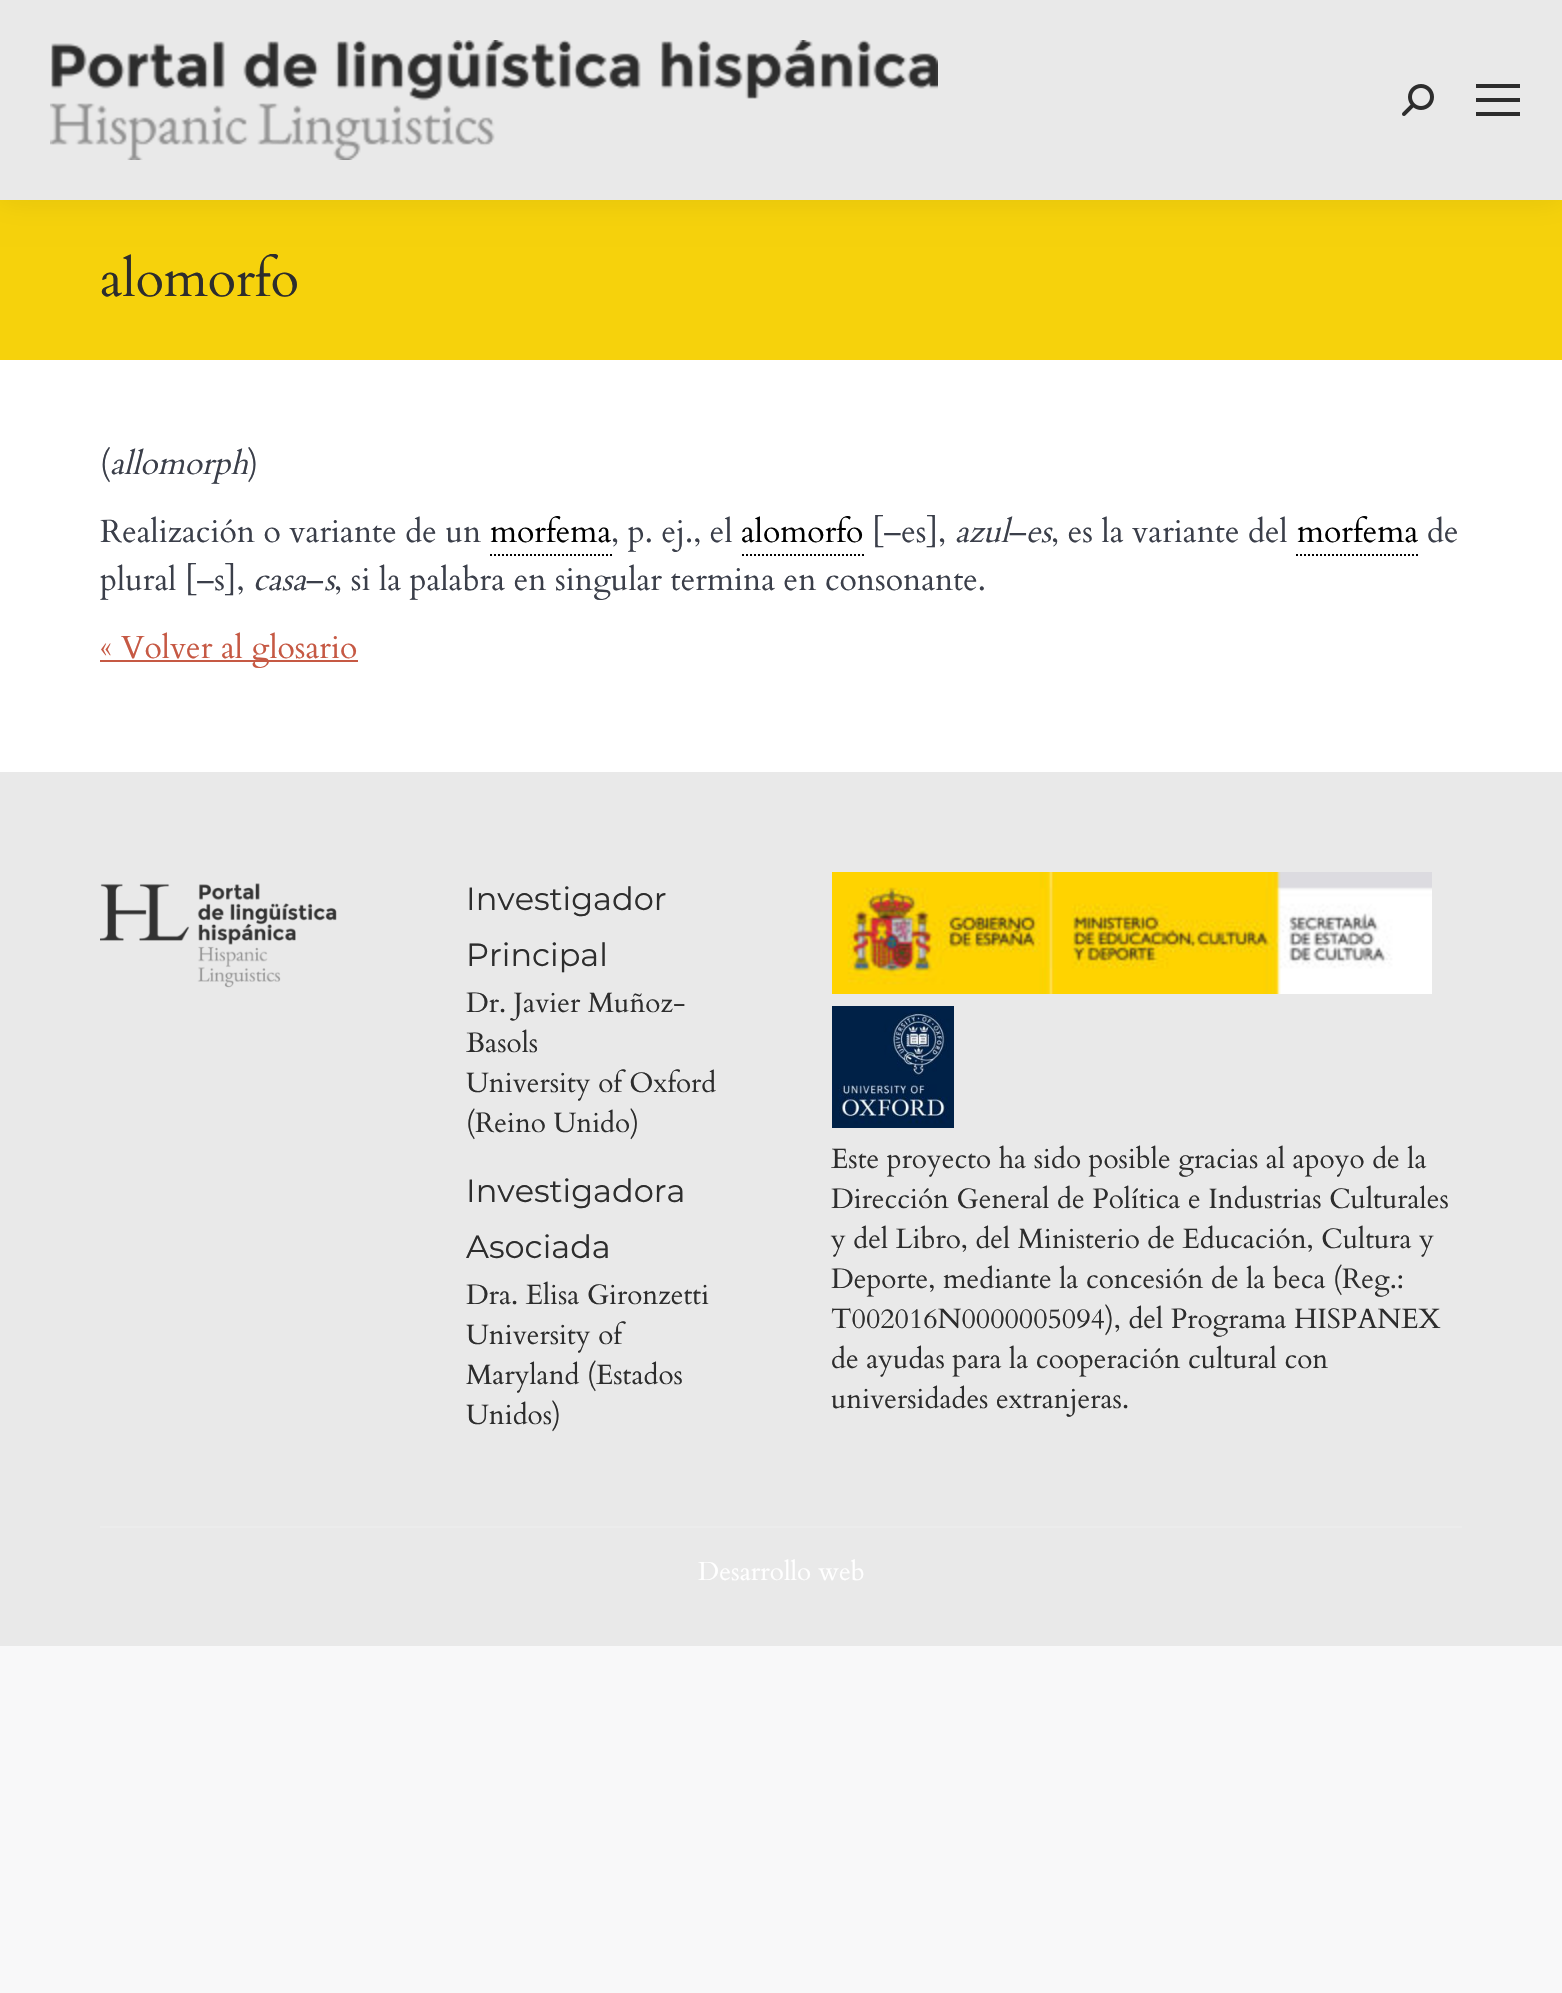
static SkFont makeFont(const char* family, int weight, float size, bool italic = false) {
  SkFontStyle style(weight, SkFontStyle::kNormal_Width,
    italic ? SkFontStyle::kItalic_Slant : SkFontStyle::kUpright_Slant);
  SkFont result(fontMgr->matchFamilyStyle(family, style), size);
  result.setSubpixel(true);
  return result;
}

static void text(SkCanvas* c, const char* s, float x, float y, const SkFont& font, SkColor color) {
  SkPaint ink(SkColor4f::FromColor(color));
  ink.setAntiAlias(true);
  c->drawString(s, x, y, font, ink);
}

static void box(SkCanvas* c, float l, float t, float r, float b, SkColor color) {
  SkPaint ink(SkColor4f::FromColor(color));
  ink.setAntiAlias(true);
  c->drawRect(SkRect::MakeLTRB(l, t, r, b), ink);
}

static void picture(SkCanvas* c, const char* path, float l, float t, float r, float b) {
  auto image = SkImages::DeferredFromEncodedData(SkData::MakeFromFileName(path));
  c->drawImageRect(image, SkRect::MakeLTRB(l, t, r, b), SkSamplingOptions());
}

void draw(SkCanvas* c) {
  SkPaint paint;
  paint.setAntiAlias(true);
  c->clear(0xfff8f8f9);
  box(c, 0, 360, 1562, 772, 0xffffffff);
  box(c, 0, 200, 1562, 360, 0xfff6d20c);
  paint.setColor(0x12000000);
  paint.setMaskFilter(SkMaskFilter::MakeBlur(kNormal_SkBlurStyle, 15));
  c->drawRect(SkRect::MakeLTRB(-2, -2, 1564, 202), paint);
  paint.setMaskFilter(nullptr);
  box(c, 0, 0, 1562, 200, 0xffe9e9e9);
  picture(c, "img_01.png", 50, 40, 938, 160);
  picture(c, "img_02.png", 1402, 84, 1434, 116);
  box(c, 1476, 84, 1520, 88, 0xff2d2d2d);
  box(c, 1476, 98, 1520, 102, 0xff2d2d2d);
  box(c, 1476, 112, 1520, 116, 0xff2d2d2d);
  c->save();
  c->clipRect(SkRect::MakeLTRB(100, 254, 298, 306));
  SkFont face1 = makeFont("Cardo", 400, 52);
  text(c, "alomorfo", 100, 296, face1, 0xff2d2d2d);
  c->restore();
  SkFont face2 = makeFont("Cardo", 400, 32);
  text(c, "(", 100, 474, face2, 0xff3b3f4a);
  SkFont face3 = makeFont("Cardo", 400, 32, true);
  text(c, "allomorph", 110, 474, face3, 0xff3b3f4a);
  text(c, ")", 248, 474, face2, 0xff3b3f4a);
  text(c, "Realización o variante de un", 100, 542, face2, 0xff3b3f4a);
  text(c, "morfema", 490, 542, face2, 0xff000000);
  paint.setStyle(SkPaint::kStroke_Style);
  paint.setStrokeWidth(2);
  paint.setColor(0xff000000);
  paint.setPathEffect(SkDashPathEffect::Make({{2, 2}}, 0));
  c->drawPath(SkPathBuilder().moveTo(490, 555).lineTo(612, 555).detach(), paint);
  paint.setPathEffect(nullptr);
  text(c, ", p. ej., el", 611, 542, face2, 0xff3b3f4a);
  text(c, "alomorfo", 741, 542, face2, 0xff000000);
  paint.setPathEffect(SkDashPathEffect::Make({{2, 2}}, 0));
  c->drawPath(SkPathBuilder().moveTo(742, 555).lineTo(864, 555).detach(), paint);
  paint.setPathEffect(nullptr);
  text(c, "[–es],", 872, 542, face2, 0xff3b3f4a);
  text(c, "azul", 955, 542, face3, 0xff3b3f4a);
  text(c, "–", 1009, 542, face2, 0xff3b3f4a);
  text(c, "es", 1026, 542, face3, 0xff3b3f4a);
  text(c, ", es la variante del", 1051, 542, face2, 0xff3b3f4a);
  text(c, "morfema", 1297, 542, face2, 0xff000000);
  paint.setPathEffect(SkDashPathEffect::Make({{2, 2}}, 0));
  c->drawPath(SkPathBuilder().moveTo(1296, 555).lineTo(1418, 555).detach(), paint);
  paint.setPathEffect(nullptr);
  text(c, "de", 1427, 542, face2, 0xff3b3f4a);
  text(c, "plural [–s],", 100, 590, face2, 0xff3b3f4a);
  text(c, "casa", 253, 590, face3, 0xff3b3f4a);
  text(c, "–", 306, 590, face2, 0xff3b3f4a);
  text(c, "s", 324, 590, face3, 0xff3b3f4a);
  text(c, ", si la palabra en singular termina en consonante.", 334, 590, face2, 0xff3b3f4a);
  box(c, 100, 660, 358, 662, 0xffc65944);
  text(c, "« Volver al glosario", 100, 658, face2, 0xffc65944);
  box(c, 0, 772, 1562, 1646, 0xffe9e9e9);
  picture(c, "img_03.png", 100, 883, 337, 988);
  SkFont face4 = makeFont("Montserrat", 400, 32);
  text(c, "Investigador", 466, 910, face4, 0xff2d2d2d);
  text(c, "Principal", 466, 966, face4, 0xff2d2d2d);
  SkFont face5 = makeFont("Cardo", 400, 28);
  text(c, "Dr. Javier Muñoz-", 466, 1012, face5, 0xff2d2d2d);
  text(c, "Basols", 466, 1052, face5, 0xff2d2d2d);
  text(c, "University of Oxford", 466, 1092, face5, 0xff2d2d2d);
  text(c, "(Reino Unido)", 466, 1132, face5, 0xff2d2d2d);
  text(c, "Investigadora", 466, 1202, face4, 0xff2d2d2d);
  text(c, "Asociada", 466, 1258, face4, 0xff2d2d2d);
  text(c, "Dra. Elisa Gironzetti", 466, 1304, face5, 0xff2d2d2d);
  text(c, "University of", 466, 1344, face5, 0xff2d2d2d);
  text(c, "Maryland (Estados", 466, 1384, face5, 0xff2d2d2d);
  text(c, "Unidos)", 466, 1424, face5, 0xff2d2d2d);
  picture(c, "img_04.png", 832, 872, 1432, 994);
  picture(c, "img_05.png", 832, 1006, 954, 1128);
  text(c, "Este proyecto ha sido posible gracias al apoyo de la", 831, 1168, face5, 0xff2d2d2d);
  text(c, "Dirección General de Política e Industrias Culturales", 831, 1208, face5, 0xff2d2d2d);
  text(c, "y del Libro, del Ministerio de Educación, Cultura y", 831, 1248, face5, 0xff2d2d2d);
  text(c, "Deporte, mediante la concesión de la beca (Reg.:", 831, 1288, face5, 0xff2d2d2d);
  text(c, "T002016N0000005094), del Programa HISPANEX", 831, 1328, face5, 0xff2d2d2d);
  text(c, "de ayudas para la cooperación cultural con", 831, 1368, face5, 0xff2d2d2d);
  text(c, "universidades extranjeras.", 831, 1408, face5, 0xff2d2d2d);
  box(c, 100, 1526, 1462, 1528, 0xffececec);
  SkFont face6 = makeFont("Cardo", 400, 26);
  text(c, "Desarrollo web", 698, 1580, face6, 0xffffffff);
}
